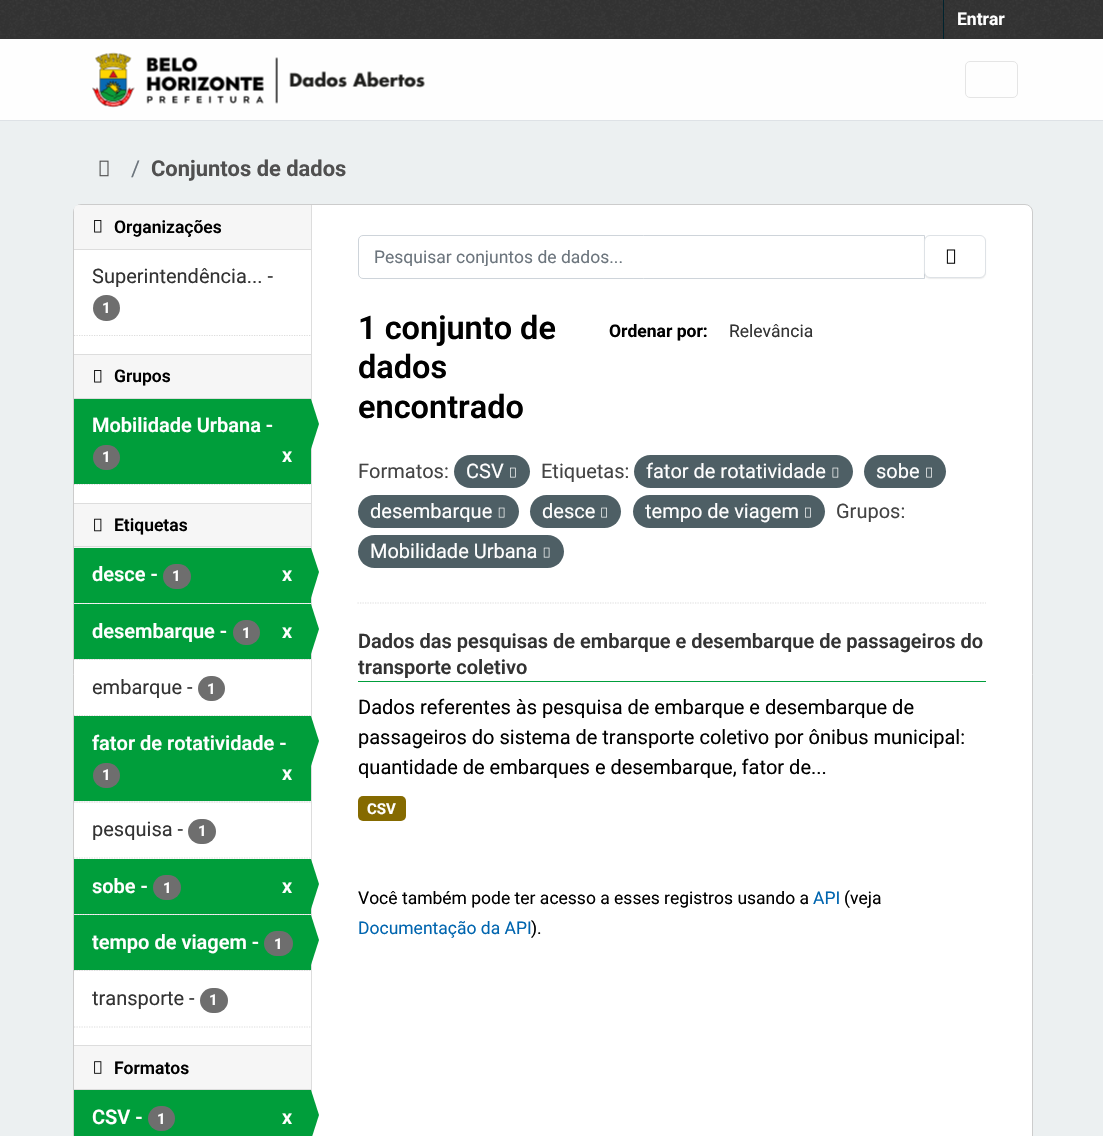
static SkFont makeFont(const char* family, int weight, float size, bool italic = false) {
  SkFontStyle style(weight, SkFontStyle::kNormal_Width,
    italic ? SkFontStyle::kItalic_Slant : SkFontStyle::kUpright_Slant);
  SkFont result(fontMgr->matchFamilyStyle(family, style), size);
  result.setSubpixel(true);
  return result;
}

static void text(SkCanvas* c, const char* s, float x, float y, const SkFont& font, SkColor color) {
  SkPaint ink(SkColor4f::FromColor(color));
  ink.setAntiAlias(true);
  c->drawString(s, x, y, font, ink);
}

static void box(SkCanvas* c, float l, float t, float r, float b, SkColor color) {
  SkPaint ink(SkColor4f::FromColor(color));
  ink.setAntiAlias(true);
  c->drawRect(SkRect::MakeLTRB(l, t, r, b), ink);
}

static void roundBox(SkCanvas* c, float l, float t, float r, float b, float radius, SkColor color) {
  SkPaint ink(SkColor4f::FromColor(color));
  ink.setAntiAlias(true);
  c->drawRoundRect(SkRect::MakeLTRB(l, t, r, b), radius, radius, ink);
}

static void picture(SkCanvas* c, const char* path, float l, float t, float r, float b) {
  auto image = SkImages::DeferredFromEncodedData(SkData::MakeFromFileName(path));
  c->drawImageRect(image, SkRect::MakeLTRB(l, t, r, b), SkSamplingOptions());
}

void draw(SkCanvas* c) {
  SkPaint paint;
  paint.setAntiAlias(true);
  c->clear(0xffecf0f1);
  box(c, 0, 0, 1103, 39, 0xff333333);
  picture(c, "img_01.png", 0, 0, 1102, 38);
  box(c, 943, 0, 944, 39, 0xff00232e);
  SkFont face1 = makeFont("Roboto", 700, 17.5f);
  text(c, "Entrar", 957, 25, face1, 0xffffffff);
  box(c, 0, 39, 1103, 120, 0xfffefefe);
  box(c, 0, 120, 1103, 121, 0xffdee2e6);
  picture(c, "img_02.png", 92, 52, 425, 108);
  paint.setStyle(SkPaint::kStroke_Style);
  paint.setStrokeWidth(1);
  paint.setColor(0xffe5e5e5);
  c->drawRoundRect(SkRect::MakeLTRB(965.5f, 61.5f, 1017.5f, 97.5f), 4.5f, 4.5f, paint);
  picture(c, "img_03.png", 99, 160, 109, 177);
  SkFont face2 = makeFont("Roboto", 400, 21.9f);
  text(c, "/", 131, 176, face2, 0xff6c757d);
  SkFont face3 = makeFont("Roboto", 700, 21.9f);
  text(c, "Conjuntos de dados", 151, 176, face3, 0xff505050);
  paint.setStyle(SkPaint::kFill_Style);
  paint.setColor(0xffffffff);
  c->drawRoundRect(SkRect::MakeLTRB(73.5f, 204.5f, 1032.5f, 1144.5f), 7.5f, 7.5f, paint);
  paint.setStyle(SkPaint::kStroke_Style);
  paint.setColor(0xffcccccc);
  c->drawRoundRect(SkRect::MakeLTRB(73.5f, 204.5f, 1032.5f, 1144.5f), 7.5f, 7.5f, paint);
  paint.setStyle(SkPaint::kFill_Style);
  paint.setColor(0xfff6f6f6);
  c->drawPath(SkPathBuilder().moveTo(78, 205).lineTo(311, 205).lineTo(311, 250).lineTo(74, 250).lineTo(74, 209).cubicTo(74, 207, 76, 205, 78, 205).close().detach(), paint);
  box(c, 74, 249, 311, 250, 0xffdddddd);
  picture(c, "img_04.png", 94, 220, 102, 233);
  SkFont face4 = makeFont("Roboto", 600, 17.5f);
  text(c, "Organizações", 114, 233, face4, 0xff000000);
  SkFont face5 = makeFont("Roboto", 400, 20);
  text(c, "Superintendência... -", 92, 283, face5, 0xff333333);
  roundBox(c, 93, 295, 120, 321, 13, 0xff6e6e6e);
  SkFont face6 = makeFont("Roboto", 700, 15);
  text(c, "1", 102, 313, face6, 0xffffffff);
  paint.setStyle(SkPaint::kStroke_Style);
  paint.setStrokeWidth(1.2f);
  paint.setColor(0xffdddddd);
  paint.setPathEffect(SkDashPathEffect::Make({{1.25f, 1.25f}}, 0));
  c->drawPath(SkPathBuilder().moveTo(74, 335.5f).lineTo(311, 335.5f).detach(), paint);
  paint.setPathEffect(nullptr);
  box(c, 74, 355, 311, 398, 0xfff6f6f6);
  box(c, 74, 354, 311, 355, 0xffdddddd);
  box(c, 74, 398, 311, 399, 0xffdddddd);
  picture(c, "img_04.png", 94, 370, 102, 383);
  text(c, "Grupos", 114, 382, face4, 0xff000000);
  paint.setPathEffect(SkDashPathEffect::Make({{1.25f, 1.25f}}, 0));
  c->drawPath(SkPathBuilder().moveTo(74, 484.5f).lineTo(311, 484.5f).detach(), paint);
  paint.setPathEffect(nullptr);
  box(c, 74, 399, 311, 484, 0xff009e3b);
  SkFont face7 = makeFont("Roboto", 600, 20);
  text(c, "Mobilidade Urbana -", 92, 432, face7, 0xffffffff);
  box(c, 311, 205, 312, 1093, 0xffdddddd);
  paint.setStyle(SkPaint::kFill_Style);
  paint.setColor(0xff009e3b);
  c->drawPath(SkPathBuilder().moveTo(311, 449).lineTo(311, 399).lineTo(319, 424).close().detach(), paint);
  roundBox(c, 93, 445, 120, 470, 12.5f, 0xff6e6e6e);
  text(c, "1", 102, 462, face6, 0xffffffff);
  text(c, "x", 282, 462, face7, 0xffffffff);
  box(c, 74, 504, 311, 548, 0xfff6f6f6);
  box(c, 74, 503, 311, 504, 0xffdddddd);
  box(c, 74, 546, 311, 547, 0xffdddddd);
  picture(c, "img_05.png", 94, 518, 102, 532);
  text(c, "Etiquetas", 114, 531, face4, 0xff000000);
  box(c, 74, 603, 311, 604, 0xfff6f6f6);
  paint.setStyle(SkPaint::kStroke_Style);
  paint.setColor(0xffdddddd);
  paint.setPathEffect(SkDashPathEffect::Make({{1.25f, 1.25f}}, 0));
  c->drawPath(SkPathBuilder().moveTo(74, 603).lineTo(311, 603).detach(), paint);
  paint.setPathEffect(nullptr);
  box(c, 74, 548, 311, 603, 0xff009e3b);
  text(c, "desce -", 92, 581, face7, 0xffffffff);
  roundBox(c, 163, 564, 191, 589, 12.5f, 0xff6e6e6e);
  text(c, "1", 172, 581, face6, 0xffffffff);
  text(c, "x", 282, 581, face7, 0xffffffff);
  paint.setStyle(SkPaint::kFill_Style);
  paint.setColor(0xff009e3b);
  c->drawPath(SkPathBuilder().moveTo(311, 598).lineTo(311, 548).lineTo(319, 572).close().detach(), paint);
  box(c, 75, 659, 311, 660, 0xfff6f6f6);
  paint.setStyle(SkPaint::kStroke_Style);
  paint.setColor(0xffdddddd);
  paint.setPathEffect(SkDashPathEffect::Make({{1.25f, 1.25f}}, 0));
  c->drawPath(SkPathBuilder().moveTo(74, 659.5f).lineTo(311, 659.5f).detach(), paint);
  paint.setPathEffect(nullptr);
  box(c, 74, 604, 311, 659, 0xff009e3b);
  text(c, "desembarque -", 92, 638, face7, 0xffffffff);
  roundBox(c, 233, 620, 260, 645, 12.5f, 0xff6e6e6e);
  text(c, "1", 242, 638, face6, 0xffffffff);
  text(c, "x", 282, 638, face7, 0xffffffff);
  paint.setStyle(SkPaint::kFill_Style);
  paint.setColor(0xff009e3b);
  c->drawPath(SkPathBuilder().moveTo(311, 654).lineTo(311, 604).lineTo(319, 629).close().detach(), paint);
  paint.setStyle(SkPaint::kStroke_Style);
  paint.setColor(0xffdddddd);
  paint.setPathEffect(SkDashPathEffect::Make({{1.25f, 1.25f}}, 0));
  c->drawPath(SkPathBuilder().moveTo(74, 715.5f).lineTo(311, 715.5f).detach(), paint);
  paint.setPathEffect(nullptr);
  text(c, "embarque -", 92, 694, face5, 0xff333333);
  roundBox(c, 198, 676, 225, 701, 12.5f, 0xff6e6e6e);
  text(c, "1", 207, 694, face6, 0xffffffff);
  box(c, 74, 801, 311, 803, 0xfff6f6f6);
  paint.setPathEffect(SkDashPathEffect::Make({{1.25f, 1.25f}}, 0));
  c->drawPath(SkPathBuilder().moveTo(74, 802).lineTo(311, 802).detach(), paint);
  paint.setPathEffect(nullptr);
  box(c, 74, 716, 311, 801, 0xff009e3b);
  text(c, "fator de rotatividade -", 92, 750, face7, 0xffffffff);
  paint.setStyle(SkPaint::kFill_Style);
  paint.setColor(0xff009e3b);
  c->drawPath(SkPathBuilder().moveTo(311, 766).lineTo(311, 716).lineTo(319, 741).close().detach(), paint);
  roundBox(c, 93, 763, 120, 788, 12.5f, 0xff6e6e6e);
  text(c, "1", 102, 780, face6, 0xffffffff);
  text(c, "x", 282, 780, face7, 0xffffffff);
  paint.setStyle(SkPaint::kStroke_Style);
  paint.setColor(0xffdddddd);
  paint.setPathEffect(SkDashPathEffect::Make({{1.25f, 1.25f}}, 0));
  c->drawPath(SkPathBuilder().moveTo(74, 858).lineTo(311, 858).detach(), paint);
  paint.setPathEffect(nullptr);
  text(c, "pesquisa -", 92, 836, face5, 0xff333333);
  roundBox(c, 188, 819, 216, 844, 12.5f, 0xff6e6e6e);
  text(c, "1", 198, 836, face6, 0xffffffff);
  box(c, 75, 914, 311, 915, 0xfff6f6f6);
  paint.setPathEffect(SkDashPathEffect::Make({{1.25f, 1.25f}}, 0));
  c->drawPath(SkPathBuilder().moveTo(74, 914.5f).lineTo(311, 914.5f).detach(), paint);
  paint.setPathEffect(nullptr);
  box(c, 74, 859, 311, 914, 0xff009e3b);
  text(c, "sobe -", 92, 893, face7, 0xffffffff);
  roundBox(c, 153, 875, 181, 900, 12.5f, 0xff6e6e6e);
  text(c, "1", 163, 893, face6, 0xffffffff);
  text(c, "x", 282, 893, face7, 0xffffffff);
  paint.setStyle(SkPaint::kFill_Style);
  paint.setColor(0xff009e3b);
  c->drawPath(SkPathBuilder().moveTo(311, 909).lineTo(311, 859).lineTo(319, 884).close().detach(), paint);
  box(c, 75, 970, 311, 971, 0xfff6f6f6);
  paint.setStyle(SkPaint::kStroke_Style);
  paint.setColor(0xffdddddd);
  paint.setPathEffect(SkDashPathEffect::Make({{1.25f, 1.25f}}, 0));
  c->drawPath(SkPathBuilder().moveTo(74, 970.5f).lineTo(311, 970.5f).detach(), paint);
  paint.setPathEffect(nullptr);
  box(c, 74, 915, 311, 970, 0xff009e3b);
  text(c, "tempo de viagem -", 92, 949, face7, 0xffffffff);
  roundBox(c, 264, 931, 293, 956, 12.5f, 0xff6e6e6e);
  text(c, "1", 274, 949, face6, 0xffffffff);
  paint.setStyle(SkPaint::kFill_Style);
  paint.setColor(0xff009e3b);
  c->drawPath(SkPathBuilder().moveTo(311, 965).lineTo(311, 915).lineTo(319, 940).close().detach(), paint);
  text(c, "transporte -", 92, 1005, face5, 0xff333333);
  roundBox(c, 200, 988, 228, 1013, 12.5f, 0xff6e6e6e);
  text(c, "1", 209, 1005, face6, 0xffffffff);
  paint.setStyle(SkPaint::kStroke_Style);
  paint.setColor(0xffdddddd);
  paint.setPathEffect(SkDashPathEffect::Make({{1.25f, 1.25f}}, 0));
  c->drawPath(SkPathBuilder().moveTo(74, 1027).lineTo(311, 1027).detach(), paint);
  paint.setPathEffect(nullptr);
  box(c, 74, 1046, 311, 1089, 0xfff6f6f6);
  box(c, 74, 1045, 311, 1046, 0xffdddddd);
  box(c, 74, 1089, 311, 1090, 0xffdddddd);
  picture(c, "img_06.png", 94, 1061, 102, 1074);
  text(c, "Formatos", 114, 1074, face4, 0xff000000);
  box(c, 74, 1090, 311, 1136, 0xff009e3b);
  text(c, "CSV -", 92, 1124, face7, 0xffffffff);
  roundBox(c, 148, 1106, 175, 1131, 12.5f, 0xff6e6e6e);
  text(c, "1", 157, 1124, face6, 0xffffffff);
  text(c, "x", 282, 1124, face7, 0xffffffff);
  paint.setStyle(SkPaint::kFill_Style);
  paint.setColor(0xff009e3b);
  c->drawPath(SkPathBuilder().moveTo(311, 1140).lineTo(311, 1090).lineTo(319, 1115).close().detach(), paint);
  paint.setStyle(SkPaint::kStroke_Style);
  paint.setColor(0xffdddddd);
  paint.setPathEffect(SkDashPathEffect::Make({{1.25f, 1.25f}}, 0));
  c->drawPath(SkPathBuilder().moveTo(357.5f, 603).lineTo(986, 603).detach(), paint);
  paint.setPathEffect(nullptr);
  paint.setStrokeWidth(1);
  paint.setColor(0xffced4da);
  c->drawPath(SkPathBuilder().moveTo(363, 235.5f).lineTo(924.5f, 235.5f).lineTo(924.5f, 278.5f).lineTo(363, 278.5f).cubicTo(360.5f, 278.5f, 358.5f, 276.5f, 358.5f, 274).lineTo(358.5f, 240).cubicTo(358.5f, 237.5f, 360.5f, 235.5f, 363, 235.5f).close().detach(), paint);
  c->save();
  c->clipRect(SkRect::MakeLTRB(374, 246, 909, 266));
  SkFont face8 = makeFont("Roboto", 400, 17.5f);
  text(c, "Pesquisar conjuntos de dados...", 374, 263, face8, 0xff6c757d);
  c->restore();
  paint.setStyle(SkPaint::kFill_Style);
  paint.setColor(0x12000000);
  paint.setMaskFilter(SkMaskFilter::MakeBlur(kNormal_SkBlurStyle, 0.5f));
  c->drawRoundRect(SkRect::MakeLTRB(924, 236, 986, 279), 6, 6, paint);
  paint.setMaskFilter(nullptr);
  paint.setColor(0xffffffff);
  c->drawRoundRect(SkRect::MakeLTRB(924.5f, 235.5f, 985.5f, 277.5f), 5.5f, 5.5f, paint);
  paint.setStyle(SkPaint::kStroke_Style);
  paint.setColor(0xffdee2e6);
  c->drawRoundRect(SkRect::MakeLTRB(924.5f, 235.5f, 985.5f, 277.5f), 5.5f, 5.5f, paint);
  picture(c, "img_07.png", 946, 249, 956, 264);
  SkFont face9 = makeFont("Roboto", 600, 32.5f);
  text(c, "1 conjunto de", 358, 339, face9, 0xff000000);
  text(c, "dados", 358, 378, face9, 0xff000000);
  text(c, "encontrado", 358, 418, face9, 0xff000000);
  text(c, "Ordenar por:", 609, 337, face1, 0xff000000);
  text(c, "Relevância", 729, 337, face8, 0xff333333);
  text(c, "Formatos:", 358, 478, face5, 0xff444444);
  roundBox(c, 454, 455, 530, 488, 16.5f, 0xff4e5f65);
  text(c, "CSV", 466, 478, face5, 0xffffffff);
  picture(c, "img_08.png", 510, 467, 516, 478);
  text(c, "Etiquetas:", 541, 478, face5, 0xff444444);
  roundBox(c, 634, 455, 853, 488, 16.5f, 0xff4e5f65);
  text(c, "fator de rotatividade", 646, 478, face5, 0xffffffff);
  picture(c, "img_09.png", 832, 467, 839, 478);
  roundBox(c, 864, 455, 946, 488, 16.5f, 0xff4e5f65);
  text(c, "sobe", 876, 478, face5, 0xffffffff);
  picture(c, "img_10.png", 926, 467, 932, 478);
  roundBox(c, 358, 495, 519, 528, 16.5f, 0xff4e5f65);
  text(c, "desembarque", 370, 518, face5, 0xffffffff);
  picture(c, "img_11.png", 498, 507, 505, 518);
  roundBox(c, 530, 495, 621, 528, 16.5f, 0xff4e5f65);
  text(c, "desce", 542, 518, face5, 0xffffffff);
  picture(c, "img_10.png", 601, 507, 607, 518);
  roundBox(c, 633, 495, 825, 528, 16.5f, 0xff4e5f65);
  text(c, "tempo de viagem", 645, 518, face5, 0xffffffff);
  picture(c, "img_08.png", 805, 507, 811, 518);
  text(c, "Grupos:", 836, 518, face5, 0xff444444);
  roundBox(c, 358, 535, 564, 568, 16.5f, 0xff4e5f65);
  text(c, "Mobilidade Urbana", 370, 558, face5, 0xffffffff);
  picture(c, "img_11.png", 543, 547, 550, 558);
  box(c, 358, 681, 986, 682, 0xff009e3b);
  text(c, "Dados das pesquisas de embarque e desembarque de passageiros do", 358, 648, face7, 0xff333333);
  text(c, "transporte coletivo", 358, 674, face7, 0xff333333);
  text(c, "Dados referentes às pesquisa de embarque e desembarque de", 358, 714, face5, 0xff000000);
  text(c, "passageiros do sistema de transporte coletivo por ônibus municipal:", 358, 744, face5, 0xff000000);
  text(c, "quantidade de embarques e desembarque, fator de...", 358, 774, face5, 0xff000000);
  roundBox(c, 358, 796, 406, 821, 5, 0xff856a00);
  text(c, "CSV", 367, 814, face6, 0xffffffff);
  text(c, "Você também pode ter acesso a esses registros usando a", 358, 904, face8, 0xff000000);
  text(c, "API", 813, 904, face8, 0xff0065af);
  text(c, "(veja", 844, 904, face8, 0xff000000);
  text(c, "Documentação da API", 358, 934, face8, 0xff0065af);
  text(c, ").", 531, 934, face8, 0xff000000);
}
